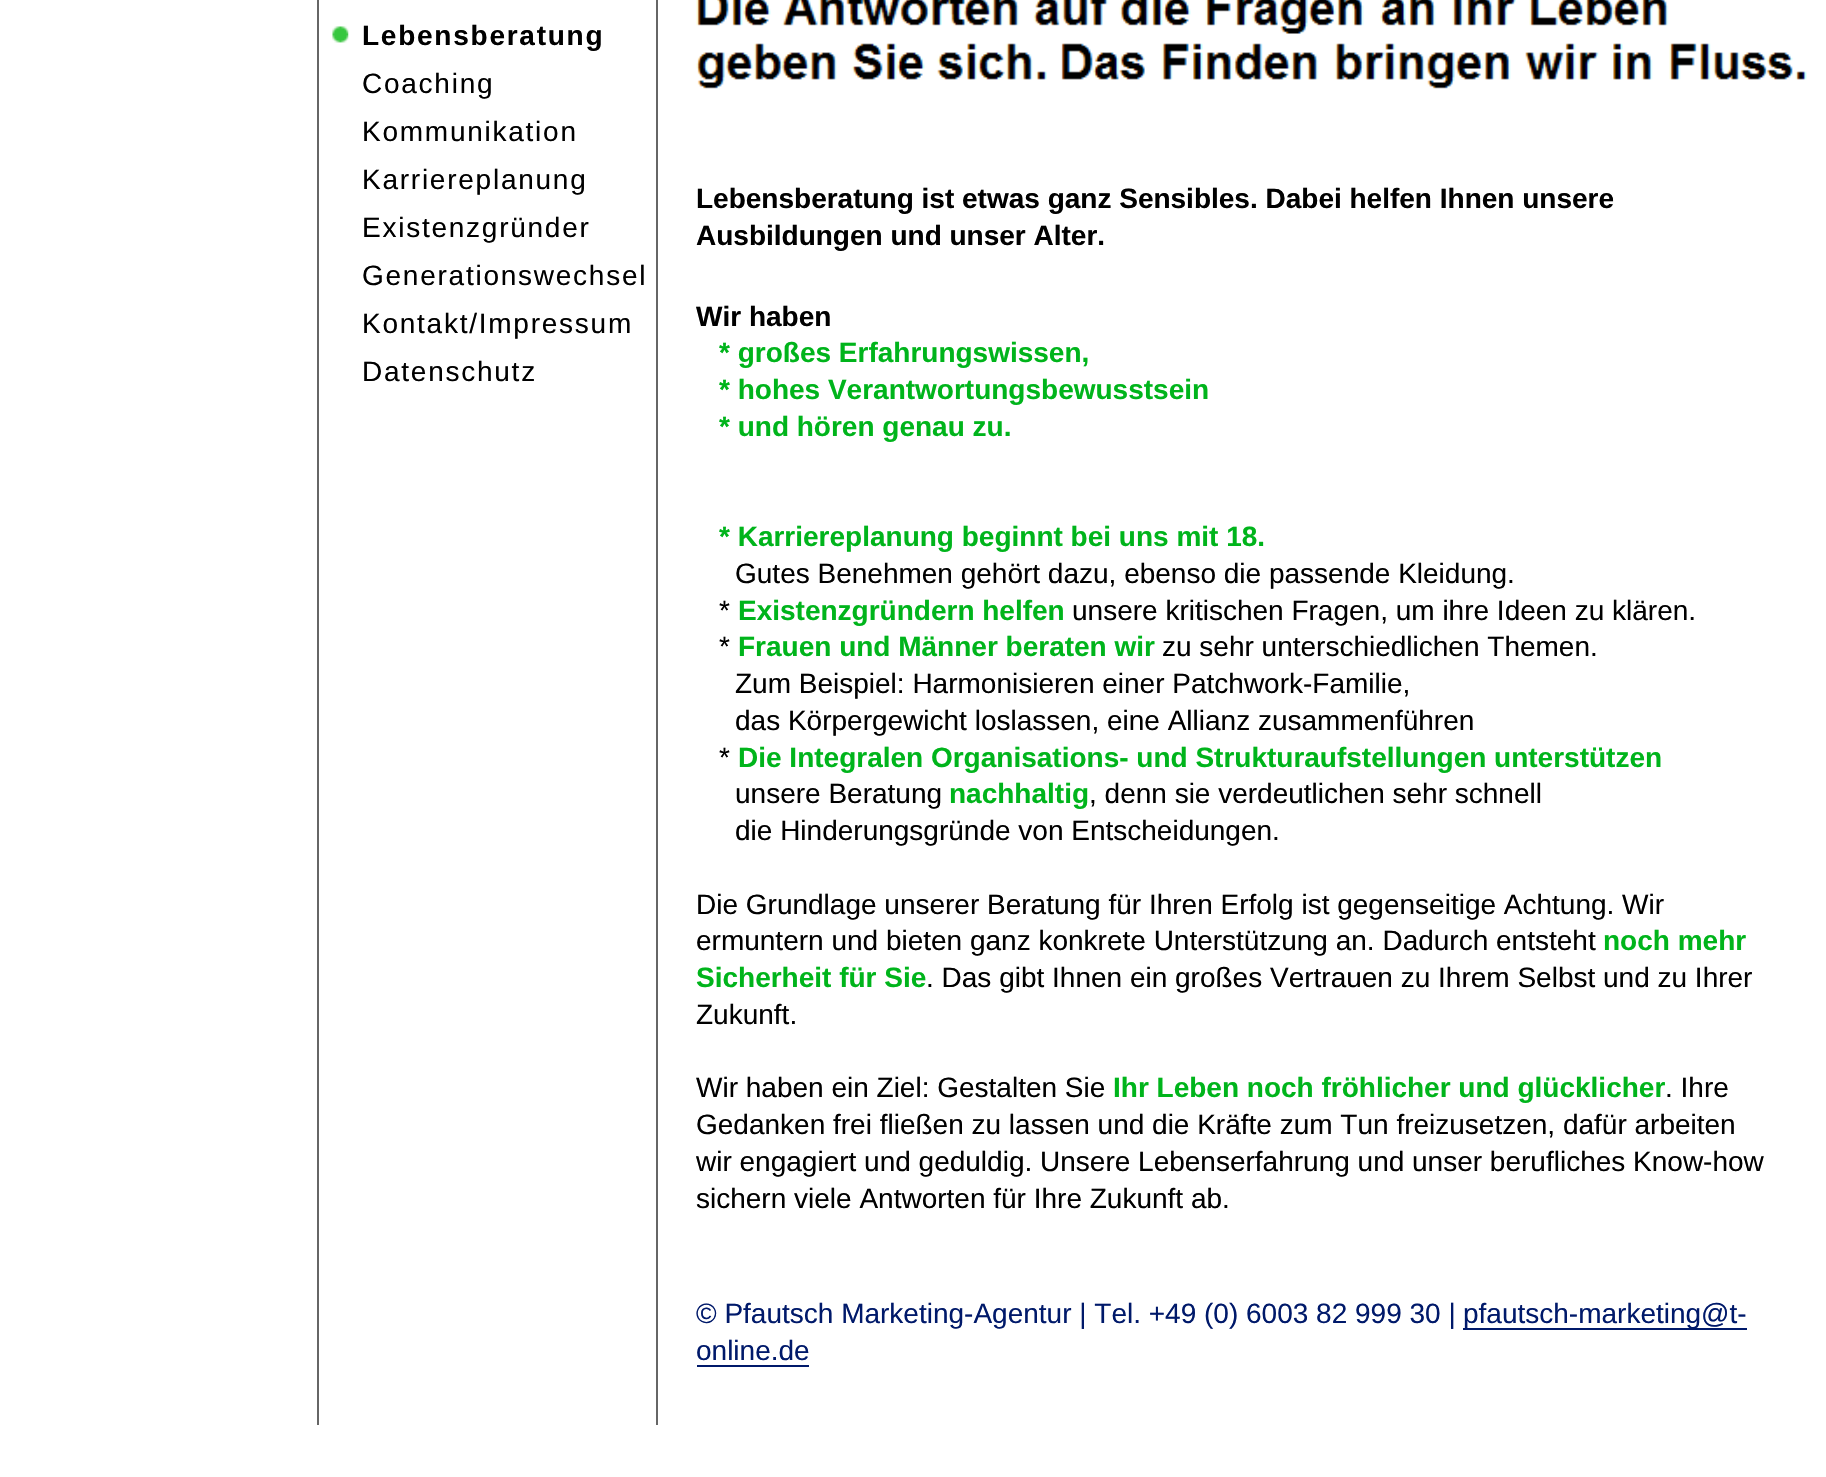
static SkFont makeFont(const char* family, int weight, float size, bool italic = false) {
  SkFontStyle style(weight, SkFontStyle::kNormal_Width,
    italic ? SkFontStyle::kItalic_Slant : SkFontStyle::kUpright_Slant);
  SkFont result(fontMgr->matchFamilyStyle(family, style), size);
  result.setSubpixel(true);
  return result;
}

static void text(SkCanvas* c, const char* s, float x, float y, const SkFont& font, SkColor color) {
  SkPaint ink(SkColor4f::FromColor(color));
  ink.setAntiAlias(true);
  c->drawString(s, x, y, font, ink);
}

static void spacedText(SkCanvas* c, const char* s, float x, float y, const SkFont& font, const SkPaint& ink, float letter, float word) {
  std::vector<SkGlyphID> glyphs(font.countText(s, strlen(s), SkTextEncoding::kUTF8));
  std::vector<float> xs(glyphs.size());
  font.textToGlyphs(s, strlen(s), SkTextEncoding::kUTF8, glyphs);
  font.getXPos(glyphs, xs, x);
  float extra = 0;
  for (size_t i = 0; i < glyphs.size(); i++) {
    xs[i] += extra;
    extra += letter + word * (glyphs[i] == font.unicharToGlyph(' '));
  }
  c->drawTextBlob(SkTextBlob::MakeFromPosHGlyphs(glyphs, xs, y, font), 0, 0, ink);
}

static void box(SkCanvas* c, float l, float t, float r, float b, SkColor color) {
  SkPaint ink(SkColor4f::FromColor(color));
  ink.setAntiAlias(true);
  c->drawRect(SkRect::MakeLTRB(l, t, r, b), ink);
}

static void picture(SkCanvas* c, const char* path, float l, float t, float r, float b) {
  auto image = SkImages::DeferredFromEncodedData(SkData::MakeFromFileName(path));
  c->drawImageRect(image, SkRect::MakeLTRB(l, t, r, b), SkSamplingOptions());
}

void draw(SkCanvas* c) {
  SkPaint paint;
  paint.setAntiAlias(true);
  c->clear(0xffffffff);
  box(c, 317, 0, 319, 1425, 0xff666666);
  picture(c, "img_01.png", 332, 26, 349, 43);
  SkFont face1 = makeFont("Liberation Sans", 700, 28);
  paint.setColor(0xff000000);
  spacedText(c, "Lebensberatung", 362, 45, face1, paint, 1.75f, 0);
  SkFont face2 = makeFont("Liberation Sans", 400, 28);
  spacedText(c, "Coaching", 362, 93, face2, paint, 1.75f, 0);
  spacedText(c, "Kommunikation", 362, 141, face2, paint, 1.75f, 0);
  spacedText(c, "Karriereplanung", 362, 189, face2, paint, 1.75f, 0);
  spacedText(c, "Existenzgründer", 362, 237, face2, paint, 1.75f, 0);
  spacedText(c, "Generationswechsel", 362, 285, face2, paint, 1.75f, 0);
  spacedText(c, "Kontakt/Impressum", 362, 333, face2, paint, 1.75f, 0);
  spacedText(c, "Datenschutz", 362, 381, face2, paint, 1.75f, 0);
  box(c, 656, 0, 658, 1425, 0xff666666);
  picture(c, "img_02.png", 696, 0, 1807, 89);
  text(c, "Lebensberatung ist etwas ganz Sensibles. Dabei helfen Ihnen unsere", 696, 208, face1, 0xff000000);
  text(c, "Ausbildungen und unser Alter.", 696, 245, face1, 0xff000000);
  text(c, "Wir haben", 696, 326, face1, 0xff000000);
  text(c, "* großes Erfahrungswissen,", 719, 362, face1, 0xff00b41b);
  text(c, "* hohes Verantwortungsbewusstsein", 719, 399, face1, 0xff00b41b);
  text(c, "* und hören genau zu.", 719, 436, face1, 0xff00b41b);
  text(c, "* Karriereplanung beginnt bei uns mit 18.", 719, 546, face1, 0xff00b41b);
  text(c, "Gutes Benehmen gehört dazu, ebenso die passende Kleidung.", 735, 583, face2, 0xff000000);
  text(c, "*", 719, 620, face2, 0xff000000);
  text(c, "Existenzgründern helfen", 738, 620, face1, 0xff00b41b);
  text(c, "unsere kritischen Fragen, um ihre Ideen zu klären.", 1072, 620, face2, 0xff000000);
  text(c, "*", 719, 656, face2, 0xff000000);
  text(c, "Frauen und Männer beraten wir", 738, 656, face1, 0xff00b41b);
  text(c, "zu sehr unterschiedlichen Themen.", 1162, 656, face2, 0xff000000);
  text(c, "Zum Beispiel: Harmonisieren einer Patchwork-Familie,", 735, 693, face2, 0xff000000);
  text(c, "das Körpergewicht loslassen, eine Allianz zusammenführen", 735, 730, face2, 0xff000000);
  text(c, "*", 719, 767, face2, 0xff000000);
  text(c, "Die Integralen Organisations- und Strukturaufstellungen unterstützen", 738, 767, face1, 0xff00b41b);
  text(c, "unsere Beratung", 735, 803, face2, 0xff000000);
  text(c, "nachhaltig", 949, 803, face1, 0xff00b41b);
  text(c, ", denn sie verdeutlichen sehr schnell", 1089, 803, face2, 0xff000000);
  text(c, "die Hinderungsgründe von Entscheidungen.", 735, 840, face2, 0xff000000);
  text(c, "Die Grundlage unserer Beratung für Ihren Erfolg ist gegenseitige Achtung. Wir", 696, 914, face2, 0xff000000);
  text(c, "ermuntern und bieten ganz konkrete Unterstützung an. Dadurch entsteht", 696, 950, face2, 0xff000000);
  text(c, "noch mehr", 1603, 950, face1, 0xff00b41b);
  text(c, "Sicherheit für Sie", 696, 987, face1, 0xff00b41b);
  text(c, ". Das gibt Ihnen ein großes Vertrauen zu Ihrem Selbst und zu Ihrer", 926, 987, face2, 0xff000000);
  text(c, "Zukunft.", 696, 1024, face2, 0xff000000);
  text(c, "Wir haben ein Ziel: Gestalten Sie", 696, 1097, face2, 0xff000000);
  text(c, "Ihr Leben noch fröhlicher und glücklicher", 1113, 1097, face1, 0xff00b41b);
  text(c, ". Ihre", 1665, 1097, face2, 0xff000000);
  text(c, "Gedanken frei fließen zu lassen und die Kräfte zum Tun freizusetzen, dafür arbeiten", 696, 1134, face2, 0xff000000);
  text(c, "wir engagiert und geduldig. Unsere Lebenserfahrung und unser berufliches Know-how", 696, 1171, face2, 0xff000000);
  text(c, "sichern viele Antworten für Ihre Zukunft ab.", 696, 1208, face2, 0xff000000);
  text(c, "© Pfautsch Marketing-Agentur | Tel. +49 (0) 6003 82 999 30 |", 696, 1323, face2, 0xff00196a);
  box(c, 1463, 1328, 1747, 1330, 0xff00196a);
  text(c, "pfautsch-marketing@t-", 1463, 1323, face2, 0xff00196a);
  text(c, "online.de", 696, 1360, face2, 0xff00196a);
  box(c, 697, 1365, 809, 1367, 0xff00196a);
}
